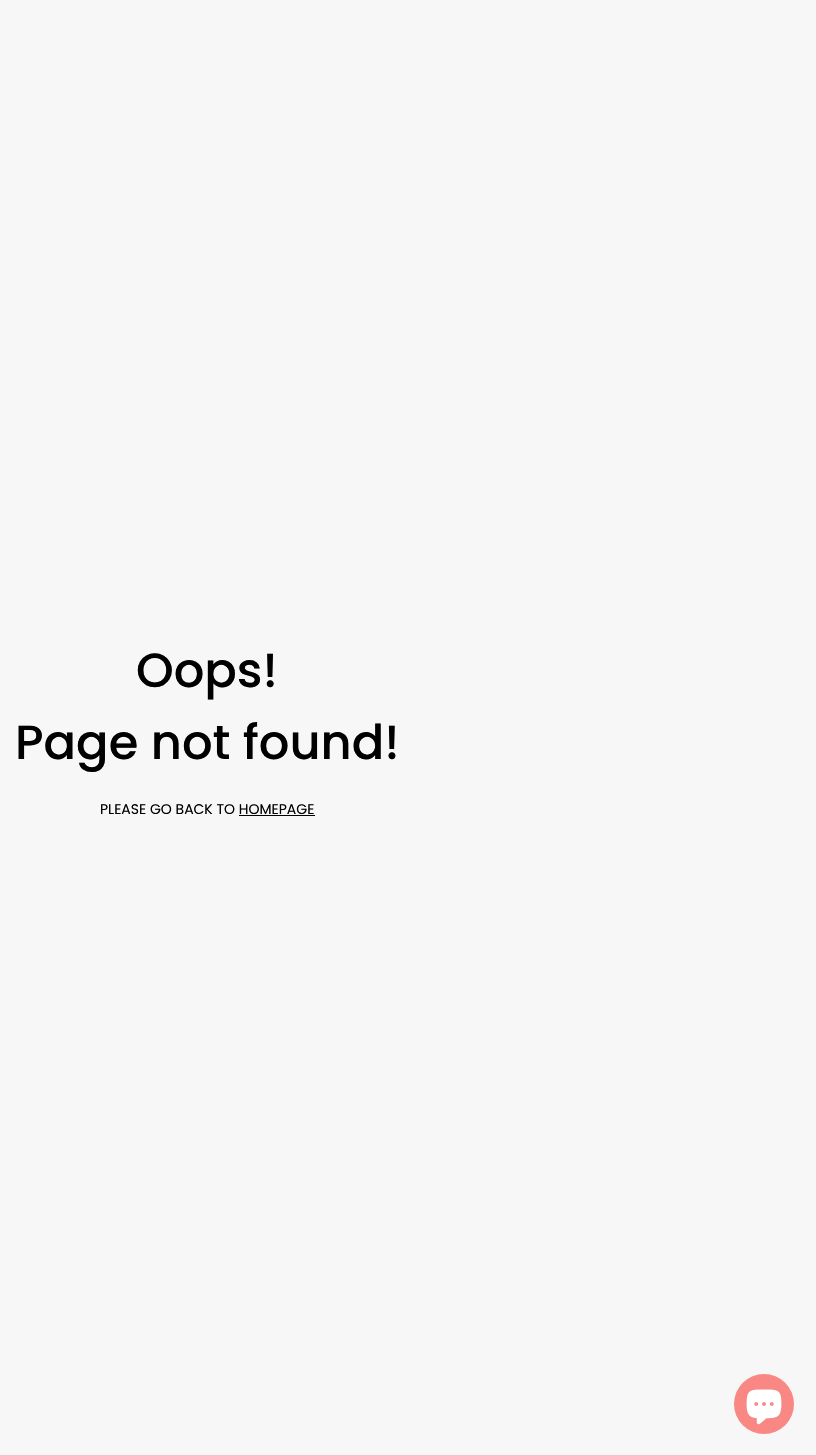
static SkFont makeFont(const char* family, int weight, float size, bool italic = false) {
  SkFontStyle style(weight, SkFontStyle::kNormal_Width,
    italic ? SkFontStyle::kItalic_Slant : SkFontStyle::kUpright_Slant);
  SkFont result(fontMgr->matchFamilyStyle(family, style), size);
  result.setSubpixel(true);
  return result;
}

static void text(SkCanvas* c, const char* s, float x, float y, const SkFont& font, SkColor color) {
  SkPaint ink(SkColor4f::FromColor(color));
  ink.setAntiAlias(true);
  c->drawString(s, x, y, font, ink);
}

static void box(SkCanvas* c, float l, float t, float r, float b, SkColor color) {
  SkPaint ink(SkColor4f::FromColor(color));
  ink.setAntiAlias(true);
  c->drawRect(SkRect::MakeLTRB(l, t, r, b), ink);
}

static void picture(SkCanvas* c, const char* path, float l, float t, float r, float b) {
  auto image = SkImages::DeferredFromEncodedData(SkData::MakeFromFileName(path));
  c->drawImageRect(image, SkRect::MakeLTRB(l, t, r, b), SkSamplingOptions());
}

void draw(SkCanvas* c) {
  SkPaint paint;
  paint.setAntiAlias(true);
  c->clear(0xfff7f7f7);
  SkFont face1 = makeFont("Poppins", 500, 48);
  text(c, "Oops!", 136, 687, face1, 0xff000000);
  text(c, "Page not found!", 15, 759, face1, 0xff000000);
  SkFont face2 = makeFont("Poppins", 400, 14);
  text(c, "PLEASE GO BACK TO HOMEPAGE", 100, 814, face2, 0xff000000);
  box(c, 239, 815, 315, 816, 0xff000000);
  paint.setColor(0xfff98884);
  c->drawCircle(764, 1404, 30, paint);
  picture(c, "img_01.png", 746, 1389, 782, 1425);
}
